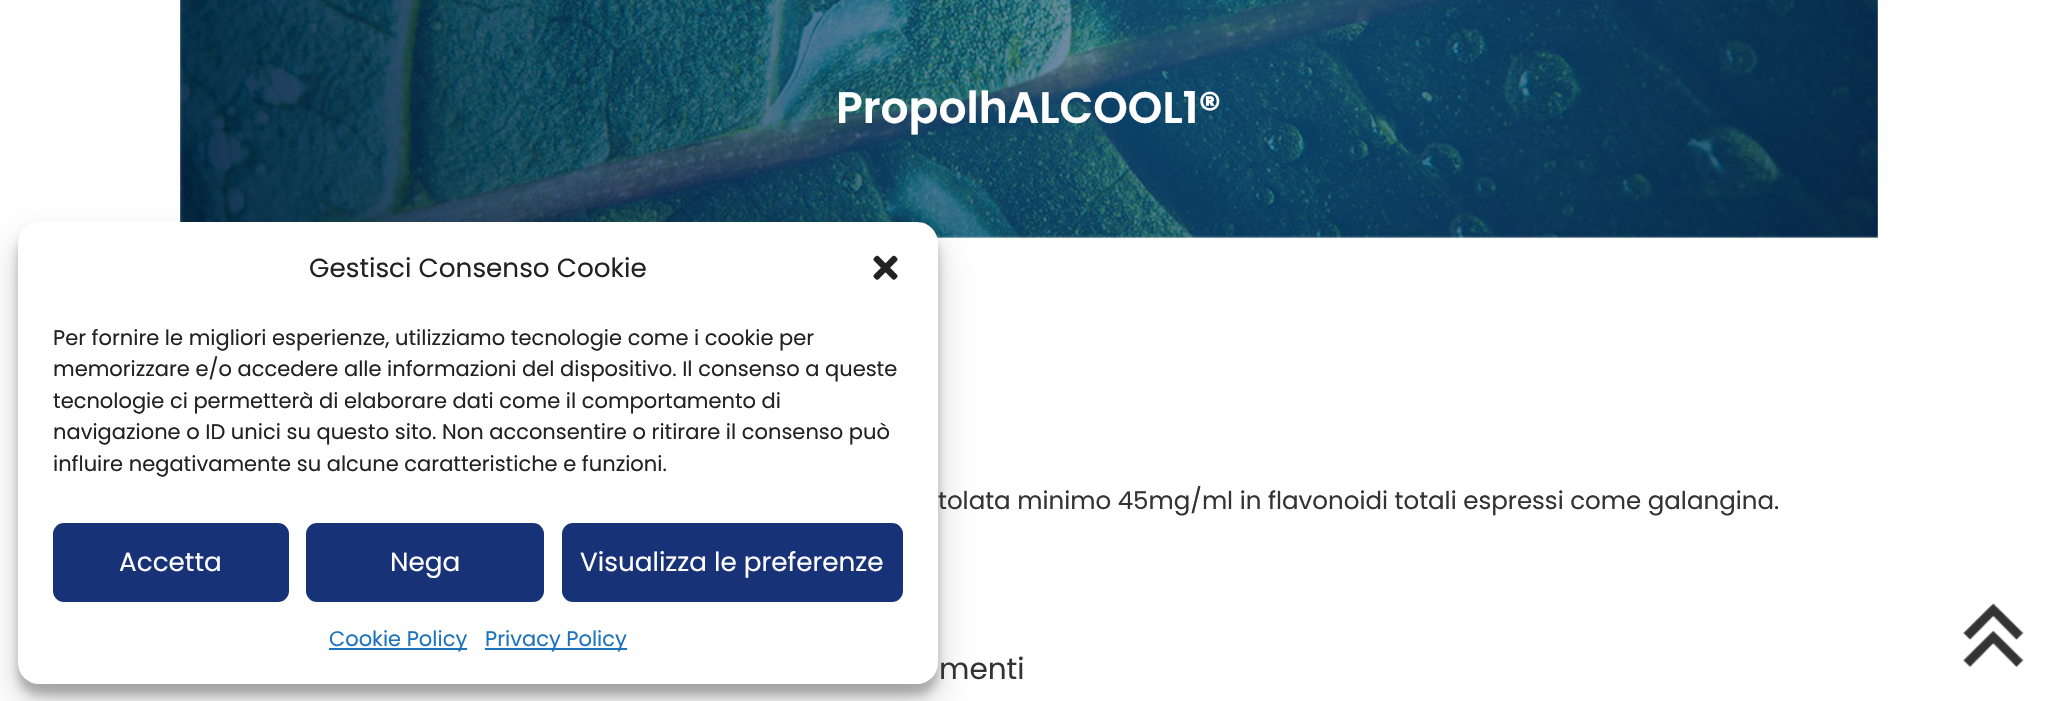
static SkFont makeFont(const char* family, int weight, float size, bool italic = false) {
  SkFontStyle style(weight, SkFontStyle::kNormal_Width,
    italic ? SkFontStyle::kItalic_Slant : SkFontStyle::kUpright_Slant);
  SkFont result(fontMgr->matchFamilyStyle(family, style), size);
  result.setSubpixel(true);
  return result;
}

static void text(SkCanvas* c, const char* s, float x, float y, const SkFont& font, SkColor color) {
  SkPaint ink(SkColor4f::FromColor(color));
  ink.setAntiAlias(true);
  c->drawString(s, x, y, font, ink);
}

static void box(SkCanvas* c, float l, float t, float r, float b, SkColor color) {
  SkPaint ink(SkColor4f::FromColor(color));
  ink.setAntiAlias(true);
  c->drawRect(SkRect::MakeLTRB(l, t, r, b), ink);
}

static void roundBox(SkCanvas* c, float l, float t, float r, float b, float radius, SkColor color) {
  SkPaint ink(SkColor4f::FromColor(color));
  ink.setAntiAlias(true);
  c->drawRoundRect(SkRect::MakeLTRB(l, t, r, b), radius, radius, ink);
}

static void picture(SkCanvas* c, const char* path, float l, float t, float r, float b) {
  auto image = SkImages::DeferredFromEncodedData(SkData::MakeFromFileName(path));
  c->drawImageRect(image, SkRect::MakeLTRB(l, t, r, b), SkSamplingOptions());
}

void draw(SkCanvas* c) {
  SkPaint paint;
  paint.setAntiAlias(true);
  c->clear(0xffffffff);
  box(c, 180, 0, 1878, 238, 0xffcccccc);
  picture(c, "img_01.png", 180, 0, 1878, 238);
  SkFont face1 = makeFont("Poppins", 600, 44);
  text(c, "PropolhALCOOL1®", 836, 123, face1, 0xffffffff);
  paint.setColor(0x3b000000);
  paint.setMaskFilter(SkMaskFilter::MakeBlur(kNormal_SkBlurStyle, 5));
  c->drawRoundRect(SkRect::MakeLTRB(18, 233, 938, 695), 21, 21, paint);
  paint.setMaskFilter(nullptr);
  paint.setColor(0x30000000);
  paint.setMaskFilter(SkMaskFilter::MakeBlur(kNormal_SkBlurStyle, 17.5f));
  c->drawRoundRect(SkRect::MakeLTRB(18, 240, 938, 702), 21, 21, paint);
  paint.setMaskFilter(nullptr);
  roundBox(c, 18, 222, 938, 684, 21, 0xffffffff);
  SkFont face2 = makeFont("Poppins", 400, 26.25f);
  text(c, "Gestisci Consenso Cookie", 309, 277, face2, 0xff222222);
  picture(c, "img_02.png", 873, 255, 898, 280);
  SkFont face3 = makeFont("Poppins", 400, 21);
  text(c, "Per fornire le migliori esperienze, utilizziamo tecnologie come i cookie per", 53, 345, face3, 0xff222222);
  text(c, "memorizzare e/o accedere alle informazioni del dispositivo. Il consenso a queste", 53, 376, face3, 0xff222222);
  text(c, "tecnologie ci permetterà di elaborare dati come il comportamento di", 53, 408, face3, 0xff222222);
  text(c, "navigazione o ID unici su questo sito. Non acconsentire o ritirare il consenso può", 53, 439, face3, 0xff222222);
  text(c, "influire negativamente su alcune caratteristiche e funzioni.", 53, 471, face3, 0xff222222);
  paint.setColor(0xff173276);
  c->drawRoundRect(SkRect::MakeLTRB(54, 524, 288, 601), 10, 10, paint);
  paint.setStyle(SkPaint::kStroke_Style);
  paint.setStrokeWidth(2);
  c->drawRoundRect(SkRect::MakeLTRB(54, 524, 288, 601), 10, 10, paint);
  text(c, "Accetta", 119, 571, face2, 0xffffffff);
  paint.setStyle(SkPaint::kFill_Style);
  c->drawRoundRect(SkRect::MakeLTRB(307, 524, 543, 601), 10, 10, paint);
  paint.setStyle(SkPaint::kStroke_Style);
  c->drawRoundRect(SkRect::MakeLTRB(307, 524, 543, 601), 10, 10, paint);
  text(c, "Nega", 390, 571, face2, 0xffffffff);
  paint.setStyle(SkPaint::kFill_Style);
  c->drawRoundRect(SkRect::MakeLTRB(563, 524, 902, 601), 10, 10, paint);
  paint.setStyle(SkPaint::kStroke_Style);
  c->drawRoundRect(SkRect::MakeLTRB(563, 524, 902, 601), 10, 10, paint);
  text(c, "Visualizza le preferenze", 580, 571, face2, 0xffffffff);
  box(c, 329, 648, 467, 650, 0xff1e73be);
  text(c, "Cookie Policy", 329, 646, face3, 0xff1e73be);
  box(c, 485, 648, 627, 650, 0xff1e73be);
  text(c, "Privacy Policy", 485, 646, face3, 0xff1e73be);
  SkFont face4 = makeFont("Poppins", 400, 24.5f);
  text(c, "tolata minimo 45mg/ml in flavonoidi totali espressi come galangina.", 938, 509, face4, 0xff333333);
  SkFont face5 = makeFont("Poppins", 400, 29.5f);
  text(c, "menti", 939, 679, face5, 0xff333333);
  picture(c, "img_03.png", 1963, 603, 2024, 667);
}
